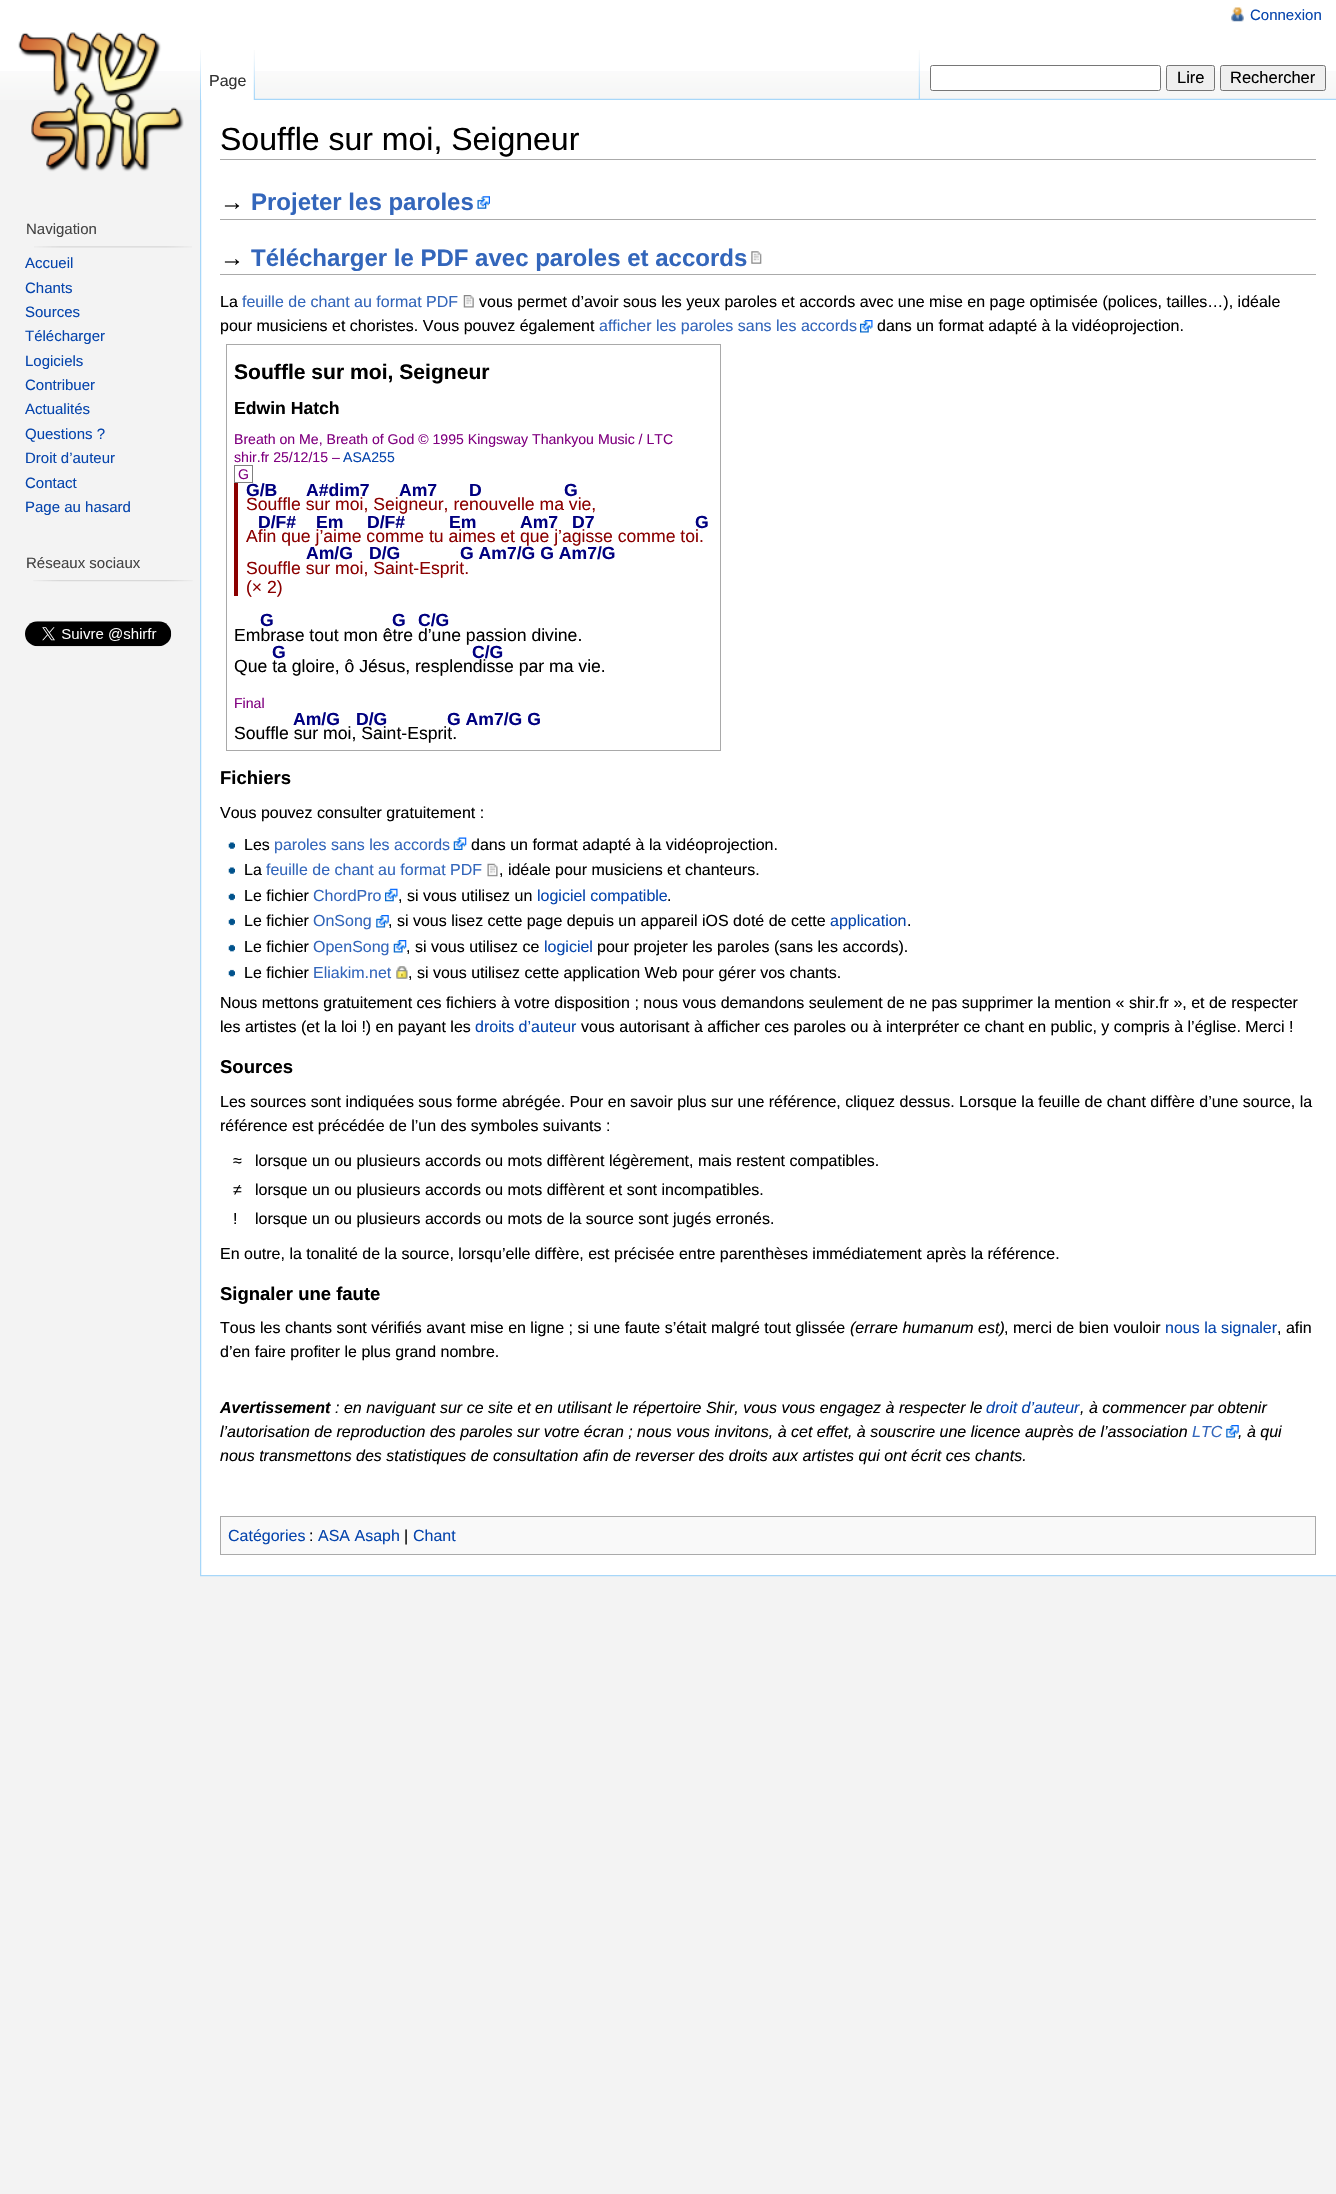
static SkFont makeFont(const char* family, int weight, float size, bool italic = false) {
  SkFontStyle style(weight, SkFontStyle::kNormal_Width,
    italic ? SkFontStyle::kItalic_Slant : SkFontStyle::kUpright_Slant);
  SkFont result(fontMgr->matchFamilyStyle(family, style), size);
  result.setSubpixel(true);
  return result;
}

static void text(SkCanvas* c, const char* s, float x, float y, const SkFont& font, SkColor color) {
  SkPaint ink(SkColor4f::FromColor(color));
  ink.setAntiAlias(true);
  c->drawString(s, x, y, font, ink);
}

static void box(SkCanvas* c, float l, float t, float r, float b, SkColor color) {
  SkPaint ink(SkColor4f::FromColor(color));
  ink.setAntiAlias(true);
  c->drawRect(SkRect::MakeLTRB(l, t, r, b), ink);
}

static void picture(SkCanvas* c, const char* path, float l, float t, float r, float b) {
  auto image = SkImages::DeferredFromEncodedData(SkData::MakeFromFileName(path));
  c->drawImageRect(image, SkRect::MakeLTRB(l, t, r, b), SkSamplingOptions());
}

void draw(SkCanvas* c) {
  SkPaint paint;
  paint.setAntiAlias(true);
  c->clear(0xfff3f3f3);
  box(c, 0, 0, 1336, 71, 0xffffffff);
  picture(c, "img_01.png", 0, 71, 1336, 100);
  picture(c, "img_02.png", 1231, 7, 1244, 22);
  SkFont face1 = makeFont("Liberation Sans", 400, 15);
  text(c, "Connexion", 1250, 20, face1, 0xff0645ad);
  picture(c, "img_06.png", 200, 98, 1336, 100);
  picture(c, "img_03.png", 200, 50, 201, 99);
  box(c, 201, 71, 254, 100, 0xffffffff);
  picture(c, "img_04.png", 253, 50, 255, 100);
  SkFont face2 = makeFont("Liberation Sans", 400, 16);
  text(c, "Page", 209, 86, face2, 0xff333333);
  picture(c, "img_05.png", 918, 50, 920, 99);
  paint.setColor(0xffffffff);
  c->drawRoundRect(SkRect::MakeLTRB(930.5f, 65.5f, 1160.5f, 90.5f), 2, 2, paint);
  paint.setStyle(SkPaint::kStroke_Style);
  paint.setStrokeWidth(1);
  paint.setColor(0xff767676);
  c->drawRoundRect(SkRect::MakeLTRB(930.5f, 65.5f, 1160.5f, 90.5f), 2, 2, paint);
  paint.setStyle(SkPaint::kFill_Style);
  paint.setColor(0xffefefef);
  c->drawRoundRect(SkRect::MakeLTRB(1166.5f, 65.5f, 1214.5f, 90.5f), 2, 2, paint);
  paint.setStyle(SkPaint::kStroke_Style);
  paint.setColor(0xff767676);
  c->drawRoundRect(SkRect::MakeLTRB(1166.5f, 65.5f, 1214.5f, 90.5f), 2, 2, paint);
  SkFont face3 = makeFont("Liberation Sans", 400, 16.5f);
  text(c, "Lire", 1177, 83, face3, 0xff000000);
  paint.setStyle(SkPaint::kFill_Style);
  paint.setColor(0xffefefef);
  c->drawRoundRect(SkRect::MakeLTRB(1220.5f, 65.5f, 1325.5f, 90.5f), 2, 2, paint);
  paint.setStyle(SkPaint::kStroke_Style);
  paint.setColor(0xff767676);
  c->drawRoundRect(SkRect::MakeLTRB(1220.5f, 65.5f, 1325.5f, 90.5f), 2, 2, paint);
  text(c, "Rechercher", 1230, 83, face3, 0xff000000);
  picture(c, "img_07.png", 18, 32, 184, 172);
  text(c, "Navigation", 26, 234, face1, 0xff444444);
  picture(c, "img_08.png", 34, 246, 192, 248);
  text(c, "Accueil", 25, 268, face1, 0xff0645ad);
  text(c, "Chants", 25, 293, face1, 0xff0645ad);
  text(c, "Sources", 25, 317, face1, 0xff0645ad);
  text(c, "Télécharger", 25, 341, face1, 0xff0645ad);
  text(c, "Logiciels", 25, 366, face1, 0xff0645ad);
  text(c, "Contribuer", 25, 390, face1, 0xff0645ad);
  text(c, "Actualités", 25, 414, face1, 0xff0645ad);
  text(c, "Questions ?", 25, 439, face1, 0xff0645ad);
  text(c, "Droit d’auteur", 25, 463, face1, 0xff0645ad);
  text(c, "Contact", 25, 488, face1, 0xff0645ad);
  text(c, "Page au hasard", 25, 512, face1, 0xff0645ad);
  text(c, "Réseaux sociaux", 26, 568, face1, 0xff444444);
  picture(c, "img_09.png", 33, 580, 193, 582);
  picture(c, "img_10.png", 25, 621, 172, 647);
  box(c, 201, 100, 1336, 1575, 0xffffffff);
  picture(c, "img_11.png", 200, 100, 202, 1575);
  box(c, 220, 159, 1316, 160, 0xffaaaaaa);
  SkFont face4 = makeFont("Liberation Sans", 400, 32);
  text(c, "Souffle sur moi, Seigneur", 220, 150, face4, 0xff000000);
  box(c, 220, 219, 1316, 220, 0xffaaaaaa);
  SkFont face5 = makeFont("Liberation Sans", 700, 24);
  text(c, "→", 220, 210, face5, 0xff000000);
  text(c, "Projeter les paroles", 251, 210, face5, 0xff3366bb);
  picture(c, "img_12.png", 477, 196, 490, 209);
  box(c, 220, 274, 1316, 275, 0xffaaaaaa);
  text(c, "→", 220, 266, face5, 0xff000000);
  text(c, "Télécharger le PDF avec paroles et accords", 251, 266, face5, 0xff3366bb);
  picture(c, "img_13.png", 751, 251, 762, 264);
  text(c, "La", 220, 307, face2, 0xff000000);
  text(c, "feuille de chant au format PDF", 242, 307, face2, 0xff3366bb);
  picture(c, "img_14.png", 463, 295, 474, 308);
  text(c, "vous permet d’avoir sous les yeux paroles et accords avec une mise en page optimisée (polices, tailles…), idéale", 479, 307, face2, 0xff000000);
  text(c, "pour musiciens et choristes. Vous pouvez également", 220, 331, face2, 0xff000000);
  text(c, "afficher les paroles sans les accords", 599, 331, face2, 0xff3366bb);
  picture(c, "img_15.png", 860, 320, 873, 333);
  text(c, "dans un format adapté à la vidéoprojection.", 877, 331, face2, 0xff000000);
  paint.setColor(0xffa9a9a9);
  c->drawRect(SkRect::MakeLTRB(226.5f, 344.5f, 720.5f, 750.5f), paint);
  SkFont face6 = makeFont("Liberation Sans", 700, 21.1f);
  text(c, "Souffle sur moi, Seigneur", 234, 379, face6, 0xff000000);
  SkFont face7 = makeFont("Liberation Sans", 700, 17.6f);
  text(c, "Edwin Hatch", 234, 414, face7, 0xff000000);
  SkFont face8 = makeFont("Liberation Sans", 400, 14.1f);
  text(c, "Breath on Me, Breath of God © 1995 Kingsway Thankyou Music / LTC", 234, 444, face8, 0xff800080);
  text(c, "shir.fr 25/12/15 –", 234, 462, face8, 0xff800080);
  text(c, "ASA255", 343, 462, face8, 0xff0645ad);
  paint.setColor(0xff808080);
  c->drawRect(SkRect::MakeLTRB(234.5f, 465.5f, 252.5f, 482.5f), paint);
  text(c, "G", 238, 479, face8, 0xff800080);
  box(c, 234, 483, 238, 596, 0xff8b0000);
  text(c, "G/B", 246, 496, face7, 0xff000080);
  text(c, "A#dim7", 306, 496, face7, 0xff000080);
  text(c, "Am7", 399, 496, face7, 0xff000080);
  text(c, "D", 469, 496, face7, 0xff000080);
  text(c, "G", 564, 496, face7, 0xff000080);
  SkFont face9 = makeFont("Liberation Sans", 400, 17.6f);
  text(c, "Souffle sur moi, Seigneur, renouvelle ma vie,", 246, 510, face9, 0xff8b0000);
  text(c, "D/F#", 258, 528, face7, 0xff000080);
  text(c, "Em", 316, 528, face7, 0xff000080);
  text(c, "D/F#", 367, 528, face7, 0xff000080);
  text(c, "Em", 449, 528, face7, 0xff000080);
  text(c, "Am7", 520, 528, face7, 0xff000080);
  text(c, "D7", 572, 528, face7, 0xff000080);
  text(c, "G", 695, 528, face7, 0xff000080);
  text(c, "Afin que j’aime comme tu aimes et que j’agisse comme toi.", 246, 542, face9, 0xff8b0000);
  text(c, "Am/G", 306, 559, face7, 0xff000080);
  text(c, "D/G", 369, 559, face7, 0xff000080);
  text(c, "G Am7/G G Am7/G", 460, 559, face7, 0xff000080);
  text(c, "Souffle sur moi, Saint-Esprit.", 246, 574, face9, 0xff8b0000);
  text(c, "(× 2)", 246, 593, face9, 0xff8b0000);
  text(c, "G", 260, 626, face7, 0xff000080);
  text(c, "G", 392, 626, face7, 0xff000080);
  text(c, "C/G", 418, 626, face7, 0xff000080);
  text(c, "Embrase tout mon être d’une passion divine.", 234, 641, face9, 0xff000000);
  text(c, "G", 272, 658, face7, 0xff000080);
  text(c, "C/G", 472, 658, face7, 0xff000080);
  text(c, "Que ta gloire, ô Jésus, resplendisse par ma vie.", 234, 672, face9, 0xff000000);
  text(c, "Final", 234, 708, face8, 0xff800080);
  text(c, "Am/G", 293, 725, face7, 0xff000080);
  text(c, "D/G", 356, 725, face7, 0xff000080);
  text(c, "G Am7/G G", 447, 725, face7, 0xff000080);
  text(c, "Souffle sur moi, Saint-Esprit.", 234, 739, face9, 0xff000000);
  SkFont face10 = makeFont("Liberation Sans", 700, 18.5f);
  text(c, "Fichiers", 220, 784, face10, 0xff000000);
  text(c, "Vous pouvez consulter gratuitement :", 220, 818, face2, 0xff000000);
  picture(c, "img_16.png", 228, 842, 235, 849);
  text(c, "Les", 244, 850, face2, 0xff000000);
  text(c, "paroles sans les accords", 274, 850, face2, 0xff3366bb);
  picture(c, "img_17.png", 453, 837, 467, 850);
  text(c, "dans un format adapté à la vidéoprojection.", 471, 850, face2, 0xff000000);
  picture(c, "img_16.png", 228, 867, 235, 874);
  text(c, "La", 244, 875, face2, 0xff000000);
  text(c, "feuille de chant au format PDF", 266, 875, face2, 0xff3366bb);
  picture(c, "img_18.png", 487, 863, 498, 877);
  text(c, ", idéale pour musiciens et chanteurs.", 499, 875, face2, 0xff000000);
  picture(c, "img_19.png", 228, 893, 235, 901);
  text(c, "Le fichier", 244, 901, face2, 0xff000000);
  text(c, "ChordPro", 313, 901, face2, 0xff3366bb);
  picture(c, "img_20.png", 385, 888, 398, 902);
  text(c, ", si vous utilisez un", 398, 901, face2, 0xff000000);
  text(c, "logiciel compatible", 537, 901, face2, 0xff0645ad);
  text(c, ".", 667, 901, face2, 0xff000000);
  picture(c, "img_19.png", 228, 918, 235, 926);
  text(c, "Le fichier", 244, 926, face2, 0xff000000);
  text(c, "OnSong", 313, 926, face2, 0xff3366bb);
  picture(c, "img_21.png", 376, 915, 389, 928);
  text(c, ", si vous lisez cette page depuis un appareil iOS doté de cette", 388, 926, face2, 0xff000000);
  text(c, "application", 830, 926, face2, 0xff0645ad);
  text(c, ".", 907, 926, face2, 0xff000000);
  picture(c, "img_22.png", 228, 944, 235, 952);
  text(c, "Le fichier", 244, 952, face2, 0xff000000);
  text(c, "OpenSong", 313, 952, face2, 0xff3366bb);
  picture(c, "img_23.png", 393, 940, 407, 953);
  text(c, ", si vous utilisez ce", 406, 952, face2, 0xff000000);
  text(c, "logiciel", 544, 952, face2, 0xff0645ad);
  text(c, "pour projeter les paroles (sans les accords).", 597, 952, face2, 0xff000000);
  picture(c, "img_22.png", 228, 969, 235, 977);
  text(c, "Le fichier", 244, 978, face2, 0xff000000);
  text(c, "Eliakim.net", 313, 978, face2, 0xff3366bb);
  picture(c, "img_24.png", 396, 966, 408, 979);
  text(c, ", si vous utilisez cette application Web pour gérer vos chants.", 408, 978, face2, 0xff000000);
  text(c, "Nous mettons gratuitement ces fichiers à votre disposition ; nous vous demandons seulement de ne pas supprimer la mention « shir.fr », et de respecter", 220, 1008, face2, 0xff000000);
  text(c, "les artistes (et la loi !) en payant les", 220, 1032, face2, 0xff000000);
  text(c, "droits d’auteur", 475, 1032, face2, 0xff0645ad);
  text(c, "vous autorisant à afficher ces paroles ou à interpréter ce chant en public, y compris à l’église. Merci !", 581, 1032, face2, 0xff000000);
  text(c, "Sources", 220, 1073, face10, 0xff000000);
  text(c, "Les sources sont indiquées sous forme abrégée. Pour en savoir plus sur une référence, cliquez dessus. Lorsque la feuille de chant diffère d’une source, la", 220, 1107, face2, 0xff000000);
  text(c, "référence est précédée de l’un des symboles suivants :", 220, 1131, face2, 0xff000000);
  text(c, "≈", 233, 1166, face2, 0xff000000);
  text(c, "lorsque un ou plusieurs accords ou mots diffèrent légèrement, mais restent compatibles.", 255, 1166, face2, 0xff000000);
  text(c, "≠", 233, 1195, face2, 0xff000000);
  text(c, "lorsque un ou plusieurs accords ou mots diffèrent et sont incompatibles.", 255, 1195, face2, 0xff000000);
  text(c, "!", 233, 1224, face2, 0xff000000);
  text(c, "lorsque un ou plusieurs accords ou mots de la source sont jugés erronés.", 255, 1224, face2, 0xff000000);
  text(c, "En outre, la tonalité de la source, lorsqu’elle diffère, est précisée entre parenthèses immédiatement après la référence.", 220, 1259, face2, 0xff000000);
  text(c, "Signaler une faute", 220, 1300, face10, 0xff000000);
  text(c, "Tous les chants sont vérifiés avant mise en ligne ; si une faute s’était malgré tout glissée", 220, 1333, face2, 0xff000000);
  SkFont face11 = makeFont("Liberation Sans", 400, 16, true);
  text(c, "(errare humanum est)", 850, 1333, face11, 0xff000000);
  text(c, ", merci de bien vouloir", 1004, 1333, face2, 0xff000000);
  text(c, "nous la signaler", 1165, 1333, face2, 0xff0645ad);
  text(c, ", afin", 1277, 1333, face2, 0xff000000);
  text(c, "d’en faire profiter le plus grand nombre.", 220, 1357, face2, 0xff000000);
  SkFont face12 = makeFont("Liberation Sans", 700, 16, true);
  text(c, "Avertissement", 220, 1413, face12, 0xff000000);
  text(c, ": en naviguant sur ce site et en utilisant le répertoire Shir, vous vous engagez à respecter le", 335, 1413, face11, 0xff000000);
  text(c, "droit d’auteur", 986, 1413, face11, 0xff0645ad);
  text(c, ", à commencer par obtenir", 1080, 1413, face11, 0xff000000);
  text(c, "l’autorisation de reproduction des paroles sur votre écran ; nous vous invitons, à cet effet, à souscrire une licence auprès de l’association", 220, 1437, face11, 0xff000000);
  text(c, "LTC", 1192, 1437, face11, 0xff3366bb);
  picture(c, "img_21.png", 1226, 1425, 1239, 1438);
  text(c, ", à qui", 1238, 1437, face11, 0xff000000);
  text(c, "nous transmettons des statistiques de consultation afin de reverser des droits aux artistes qui ont écrit ces chants.", 220, 1461, face11, 0xff000000);
  paint.setStyle(SkPaint::kFill_Style);
  paint.setColor(0xfff9f9f9);
  c->drawRect(SkRect::MakeLTRB(220.5f, 1516.5f, 1315.5f, 1554.5f), paint);
  paint.setStyle(SkPaint::kStroke_Style);
  paint.setColor(0xffaaaaaa);
  c->drawRect(SkRect::MakeLTRB(220.5f, 1516.5f, 1315.5f, 1554.5f), paint);
  text(c, "Catégories", 228, 1541, face2, 0xff0645ad);
  text(c, ":", 309, 1541, face2, 0xff000000);
  text(c, "ASA Asaph", 318, 1541, face2, 0xff0645ad);
  text(c, "|", 404, 1541, face2, 0xff000000);
  text(c, "Chant", 413, 1541, face2, 0xff0645ad);
  picture(c, "img_25.png", 200, 1575, 1336, 1577);
}
